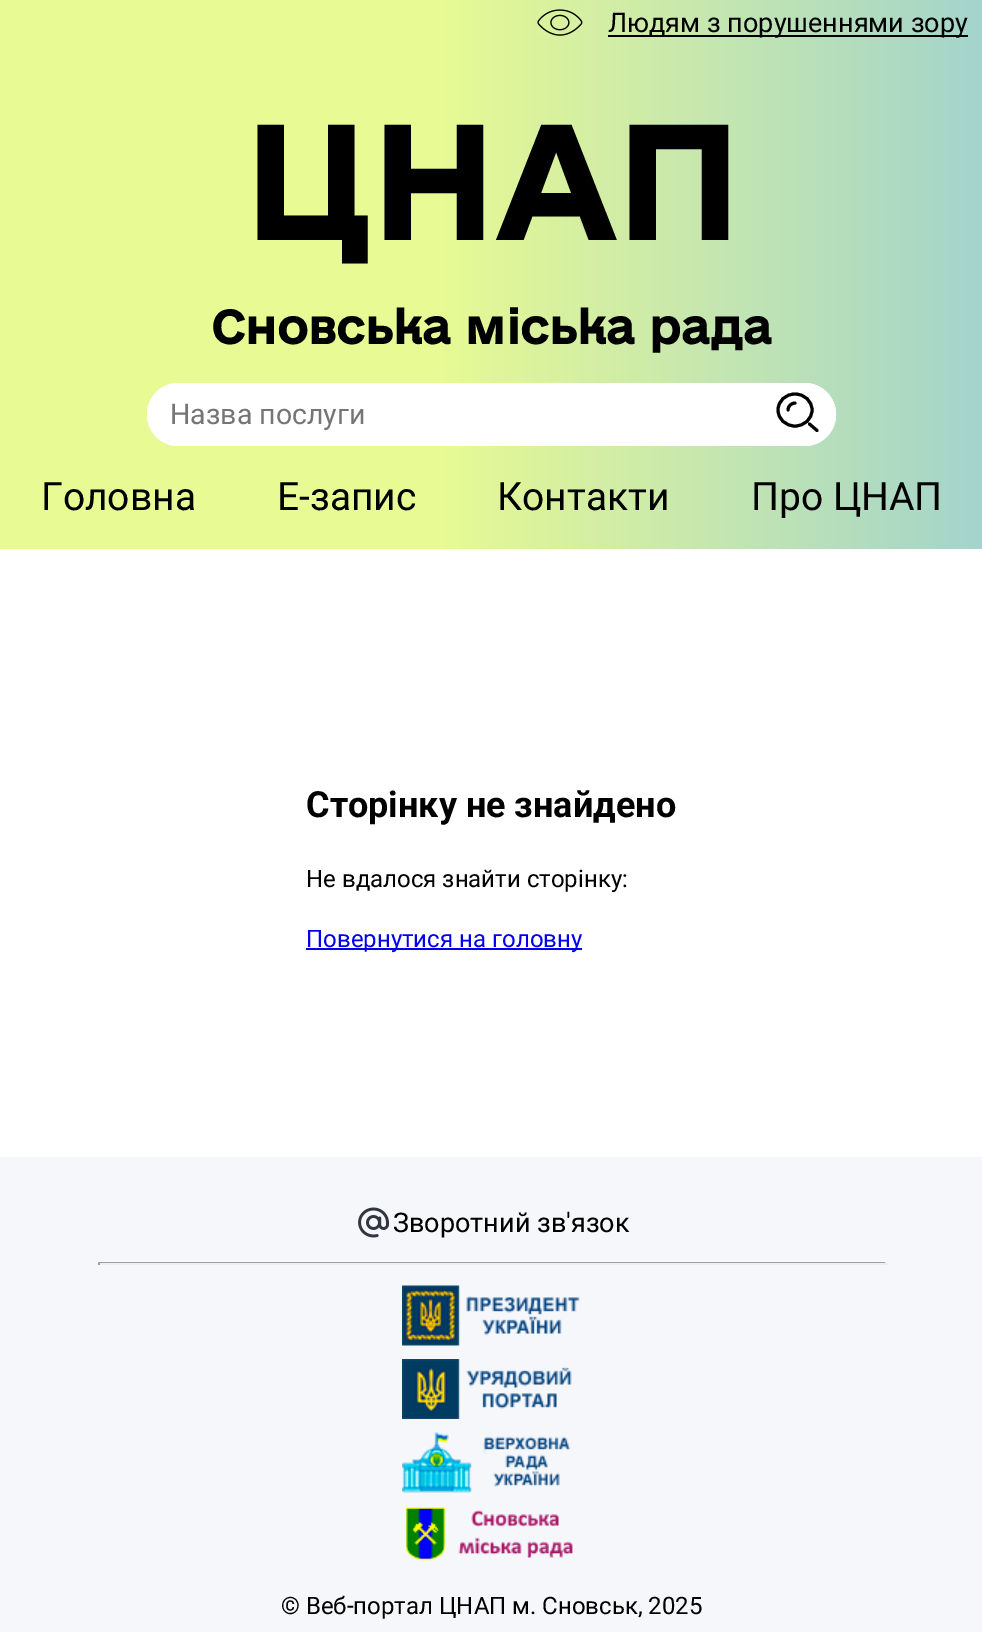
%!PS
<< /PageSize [982 1632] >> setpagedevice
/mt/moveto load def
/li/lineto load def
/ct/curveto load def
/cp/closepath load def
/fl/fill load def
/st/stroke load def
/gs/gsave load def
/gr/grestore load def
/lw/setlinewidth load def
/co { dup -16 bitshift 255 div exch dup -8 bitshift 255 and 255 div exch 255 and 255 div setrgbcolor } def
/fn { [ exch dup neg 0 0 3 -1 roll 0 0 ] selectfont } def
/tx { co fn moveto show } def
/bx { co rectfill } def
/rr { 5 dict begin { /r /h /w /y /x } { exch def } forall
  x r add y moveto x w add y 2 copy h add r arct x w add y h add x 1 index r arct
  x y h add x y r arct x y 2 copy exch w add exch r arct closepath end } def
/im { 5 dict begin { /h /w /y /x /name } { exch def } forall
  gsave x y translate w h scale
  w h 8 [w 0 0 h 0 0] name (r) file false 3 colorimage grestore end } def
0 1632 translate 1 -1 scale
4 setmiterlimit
0 0 982 1632 16#FFFFFF bx
gs 0 0 mt 982 0 li 982 549 li 0 549 li cp clip newpath
<< /ShadingType 2 /ColorSpace /DeviceRGB /Coords [0 1224 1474 1224] /Extend [true true] /Function << /FunctionType 3 /Domain [0 1] /Functions [<< /FunctionType 2 /Domain [0 1] /C0 [.906 .98 .58] /C1 [.906 .98 .58] /N 1 >> << /FunctionType 2 /Domain [0 1] /C0 [.906 .98 .58] /C1 [.4 .694 1] /N 1 >>] /Bounds [.3] /Encode [0 1 0 1] >> >> shfill gr
(media/1.raw) 537 9 46 27 im
608 35 360 2 16#000000 bx
16#FFFFFF co
147 383 689 63 31.5 rr fl
178.5 383 mt 759 383 li 759 446 li 178.5 446 li 161 446 147 432 147 414.5 ct 147 397 161 383 178.5 383 ct cp fl
759 383 77 63 31.5 rr fl
16#000000 co
3 lw
795 394 mt 804.5 394 812 401 812 410 ct 812 419 804.5 426 795 426 ct 785.5 426 778 419 778 410 ct 778 401 785.5 394 795 394 ct cp st
1 setlinecap
795 403 mt 791.5 403 788 406 788 410 ct 817 430.5 mt 809.5 424 li st
306 948 276 2 16#0000EE bx
0 1157 982 475 16#F5F7FA bx
(media/2.raw) 358 1207 31 31 im
98 1262 789 1 16#9F9F9F bx
885 1262 2 3 16#EEEEEE bx
98 1263 789 2 16#EEEEEE bx
98 1262 2 3 16#9F9F9F bx
(media/3.raw) 402 1285 178 61 im
(media/4.raw) 402 1359 170 60 im
(media/5.raw) 402 1432 169 61 im
(media/6.raw) 406 1507 167 54 im
(Людям з порушеннями зору) 608 32 /Roboto-Regular 27 16#000000 tx
(ЦНАП) 242 240 /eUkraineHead-Bold 150 16#000000 tx
(Сновська міська рада) 211 344 /eUkraineHead-Bold 45 16#000000 tx
(Назва послуги) 170 424 /Roboto-Regular 28.5 16#757575 tx
(Головна) 41 510 /Roboto-Regular 39 16#000000 tx
(E-запис) 277 510 /Roboto-Regular 39 16#000000 tx
(Контакти) 497 510 /Roboto-Regular 39 16#000000 tx
(Про ЦНАП) 751 510 /Roboto-Regular 39 16#000000 tx
(Сторінку не знайдено) 306 817 /Roboto-Bold 36 16#000000 tx
(Не вдалося знайти сторінку:) 306 887 /Roboto-Regular 24 16#000000 tx
(Повернутися на головну) 306 947 /Roboto-Regular 24 16#0000EE tx
(Зворотний зв'язок) 393 1232 /Roboto-Regular 27 16#000000 tx
(© Веб-портал ЦНАП м. Сновськ, 2025) 281 1614 /Roboto-Regular 24 16#000000 tx
showpage
